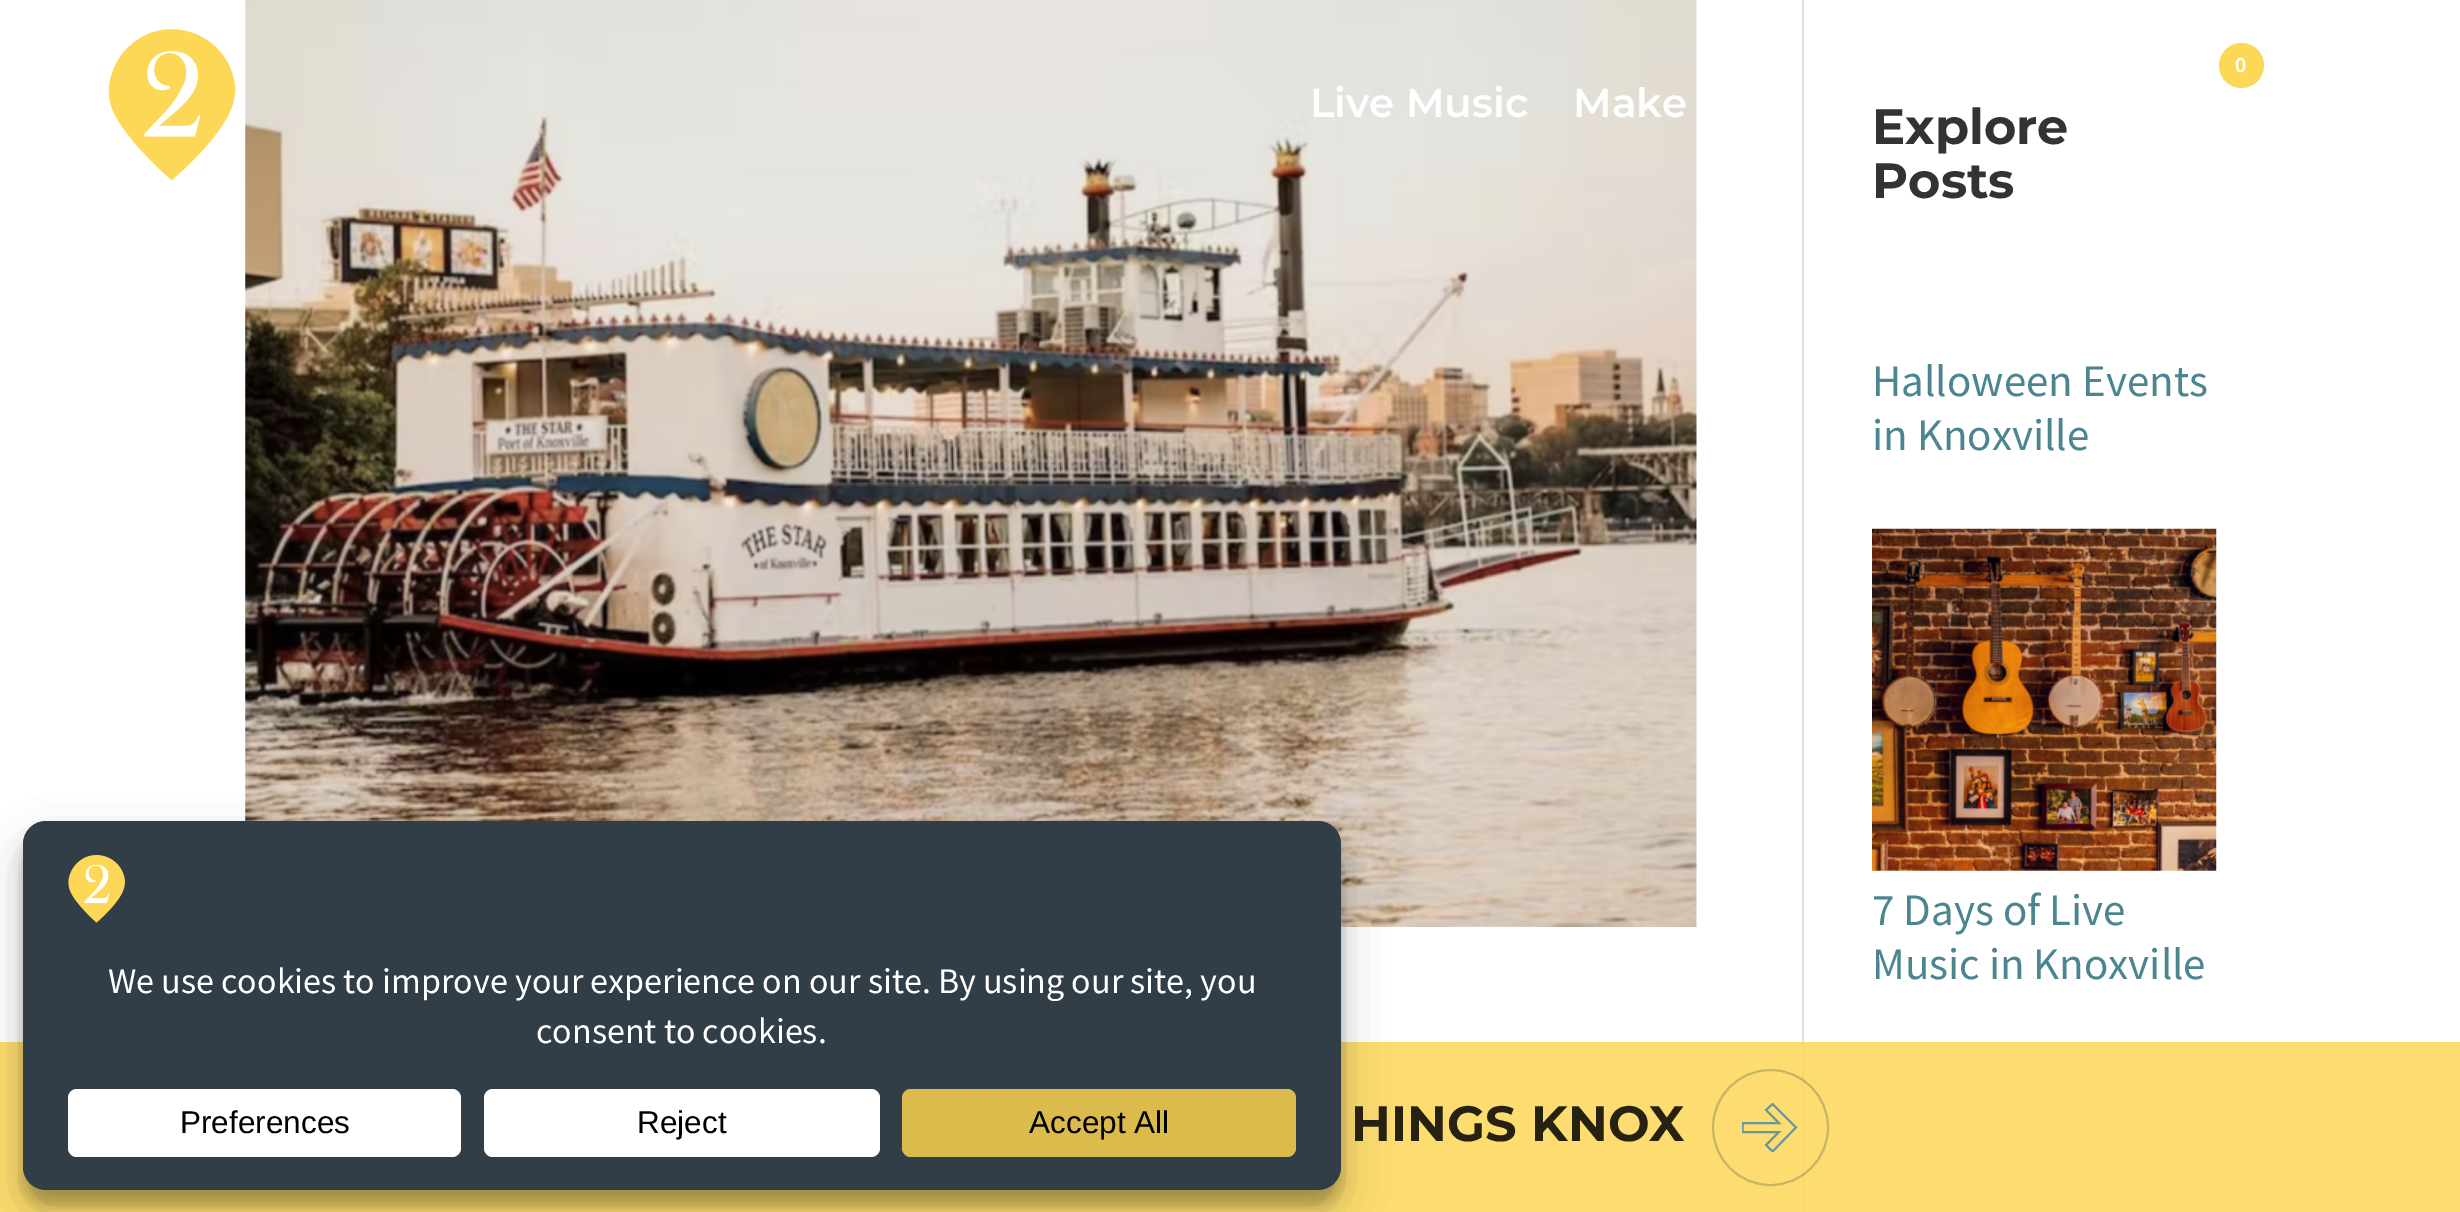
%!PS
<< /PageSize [2460 1212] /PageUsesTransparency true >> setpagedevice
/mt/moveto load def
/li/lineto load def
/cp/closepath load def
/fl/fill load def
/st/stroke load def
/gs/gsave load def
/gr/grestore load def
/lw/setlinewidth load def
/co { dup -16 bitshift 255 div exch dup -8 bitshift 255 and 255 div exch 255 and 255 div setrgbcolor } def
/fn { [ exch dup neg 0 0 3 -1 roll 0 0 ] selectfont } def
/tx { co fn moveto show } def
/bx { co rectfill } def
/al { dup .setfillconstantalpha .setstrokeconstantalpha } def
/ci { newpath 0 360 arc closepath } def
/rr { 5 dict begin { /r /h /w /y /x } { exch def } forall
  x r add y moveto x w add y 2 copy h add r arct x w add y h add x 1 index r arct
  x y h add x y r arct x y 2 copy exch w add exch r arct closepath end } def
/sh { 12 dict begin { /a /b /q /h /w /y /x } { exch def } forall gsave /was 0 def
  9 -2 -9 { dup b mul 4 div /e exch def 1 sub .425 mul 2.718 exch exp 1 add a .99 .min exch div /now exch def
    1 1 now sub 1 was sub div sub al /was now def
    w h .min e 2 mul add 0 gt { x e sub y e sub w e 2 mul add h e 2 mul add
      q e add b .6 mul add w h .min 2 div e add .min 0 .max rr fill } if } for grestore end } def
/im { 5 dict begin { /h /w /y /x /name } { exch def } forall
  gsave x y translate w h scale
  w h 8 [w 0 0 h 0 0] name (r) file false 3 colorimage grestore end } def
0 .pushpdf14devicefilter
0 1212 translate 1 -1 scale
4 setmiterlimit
0 0 2460 1212 16#FFFFFF bx
(media/3.raw) 245 0 1452 927 im
1802 0 2 1212 16#E2E2E2 bx
0.85 al
0 1042 2460 170 16#FDD756 bx
1 al
16#000000 co
23 835 1318 369 23 7 .23 sh
23 844 1318 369 23 22.5 .19 sh
16#313E48 co
23 821 1318 369 23 rr fl
(media/1.raw) 68 855 58 68 im
16#FFFFFF co
68 1089 393 68 9 rr fl
484 1089 396 68 9 rr fl
16#DABB4B co
902 1089 394 68 9 rr fl
(media/2.raw) 108 29 128 152 im
16#FDD756 co
2241.5 65.5 22.5 ci fl
(media/4.raw) 1872 528 345 343 im
gs
1742 1103 56 49 rectclip
16#6697A1 co
1.9 lw
1742.5 1123 mt 1779 1123 li 1766 1110 li 1772.5 1104 li 1796 1127.5 li 1772.5 1151.5 li 1766 1145 li 1779 1132 li 1742.5 1132 li cp st
gr
0.26 al
16#313E48 co
2 lw
1770.5 1127.5 57.5 ci st
1 al
(We use cookies to improve your experience on our site. By using our site, you) 108 993 /SourceSansPro-Regular 36 16#FFFFFF tx
(consent to cookies.) 536 1043 /SourceSansPro-Regular 36 16#FFFFFF tx
(Preferences) 180 1133 /LiberationSans-Regular 31.5 16#000000 tx
(Reject) 637 1133 /LiberationSans-Regular 31.5 16#000000 tx
(Accept All) 1029 1133 /LiberationSans-Regular 31.5 16#000000 tx
(0) 2235 72 /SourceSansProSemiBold-SemiBold 22 16#FFFFFF tx
(Live Music) 1310 117 /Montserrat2-Thin 40.5 16#FFFFFF tx
(Make) 1573 117 /Montserrat2-Thin 40.5 16#FFFFFF tx
(Explore) 1872 144 /Montserrat-Thin 49.5 16#333333 tx
(Posts) 1872 198 /Montserrat-Thin 49.5 16#333333 tx
(Halloween Events) 1872 396 /SourceSansPro-Regular 45 16#4B8590 tx
(in Knoxville) 1872 450 /SourceSansPro-Regular 45 16#4B8590 tx
(7 Days of Live) 1872 925 /SourceSansPro-Regular 45 16#4B8590 tx
(Music in Knoxville) 1872 979 /SourceSansPro-Regular 45 16#4B8590 tx
(HINGS KNOX) 1351 1141 /Montserrat-Thin 49.5 16#262110 tx
.poppdf14devicefilter showpage
